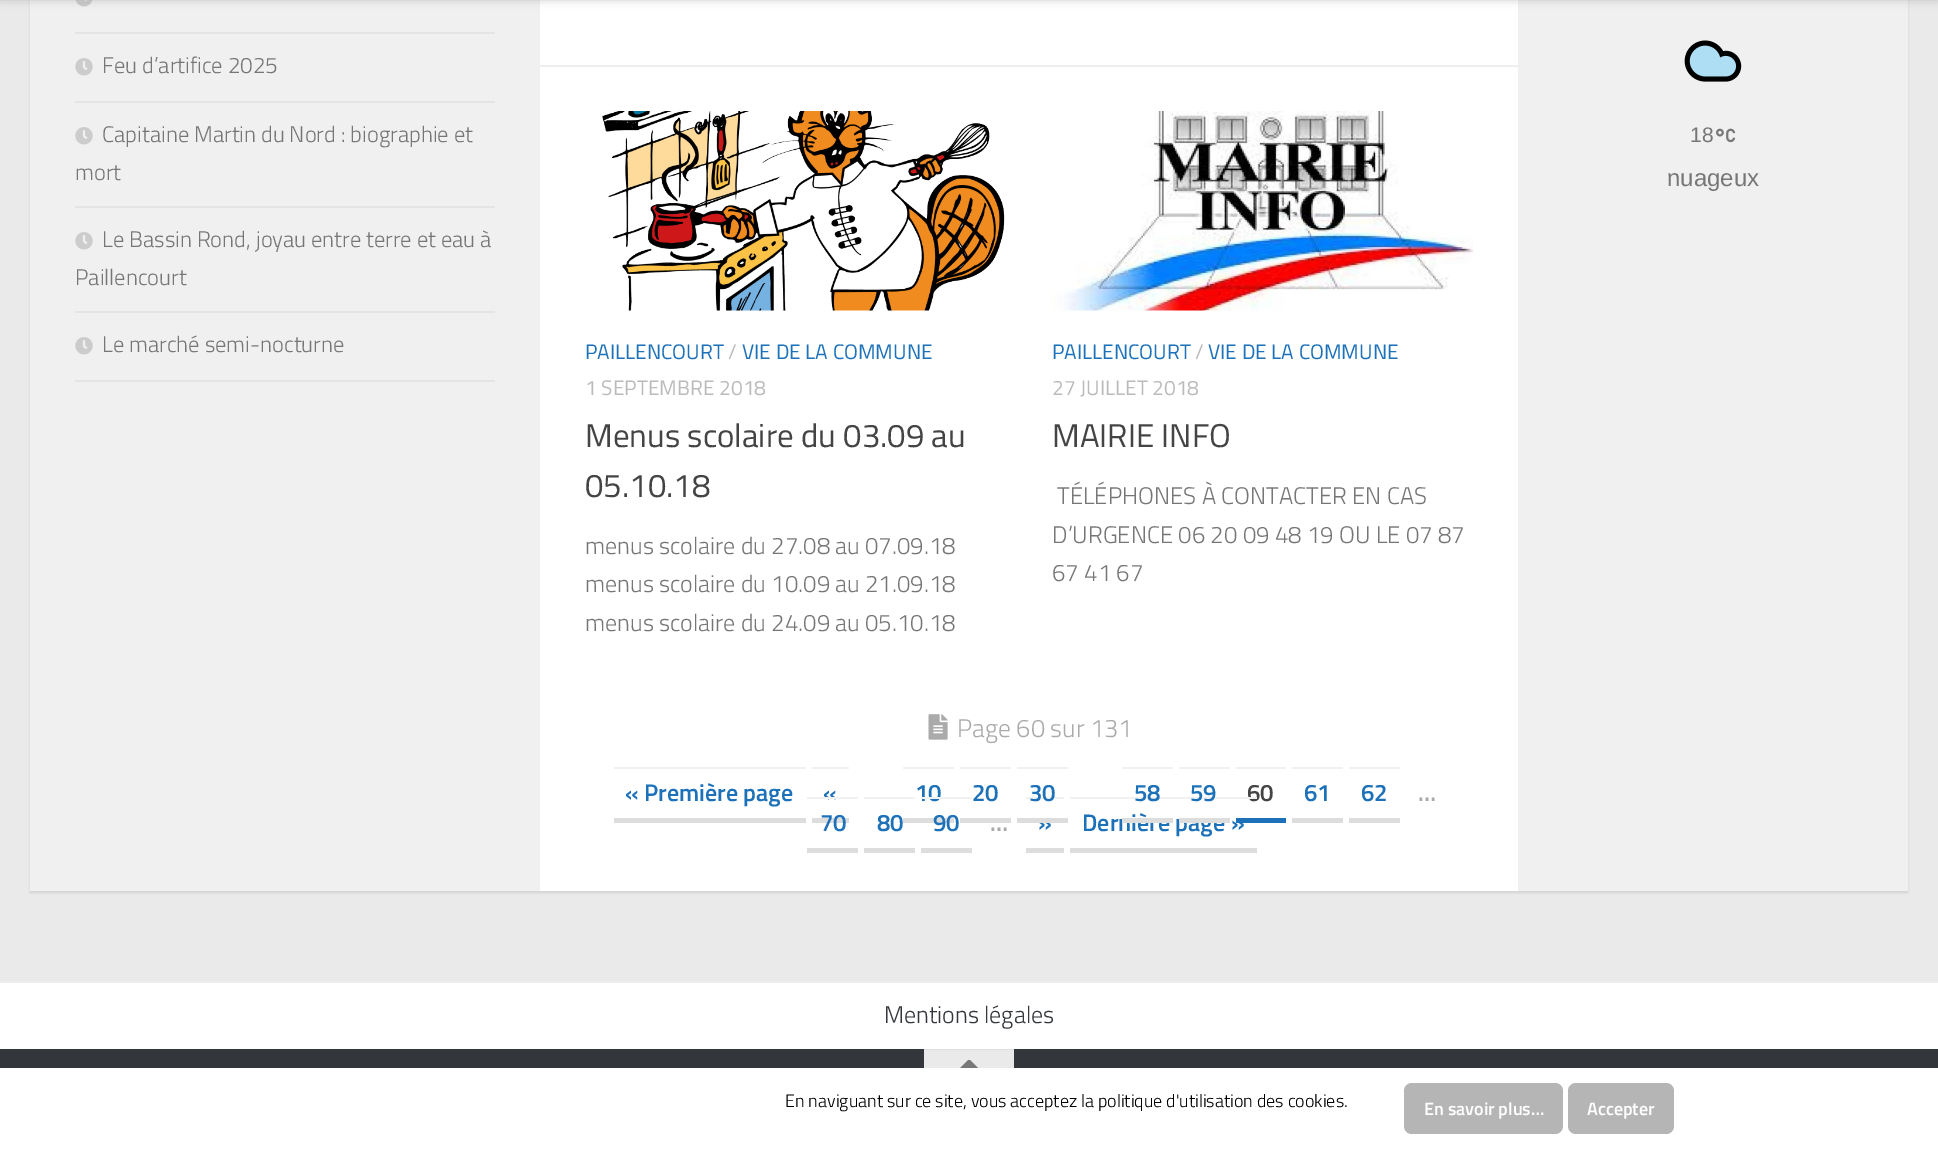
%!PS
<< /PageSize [1938 1149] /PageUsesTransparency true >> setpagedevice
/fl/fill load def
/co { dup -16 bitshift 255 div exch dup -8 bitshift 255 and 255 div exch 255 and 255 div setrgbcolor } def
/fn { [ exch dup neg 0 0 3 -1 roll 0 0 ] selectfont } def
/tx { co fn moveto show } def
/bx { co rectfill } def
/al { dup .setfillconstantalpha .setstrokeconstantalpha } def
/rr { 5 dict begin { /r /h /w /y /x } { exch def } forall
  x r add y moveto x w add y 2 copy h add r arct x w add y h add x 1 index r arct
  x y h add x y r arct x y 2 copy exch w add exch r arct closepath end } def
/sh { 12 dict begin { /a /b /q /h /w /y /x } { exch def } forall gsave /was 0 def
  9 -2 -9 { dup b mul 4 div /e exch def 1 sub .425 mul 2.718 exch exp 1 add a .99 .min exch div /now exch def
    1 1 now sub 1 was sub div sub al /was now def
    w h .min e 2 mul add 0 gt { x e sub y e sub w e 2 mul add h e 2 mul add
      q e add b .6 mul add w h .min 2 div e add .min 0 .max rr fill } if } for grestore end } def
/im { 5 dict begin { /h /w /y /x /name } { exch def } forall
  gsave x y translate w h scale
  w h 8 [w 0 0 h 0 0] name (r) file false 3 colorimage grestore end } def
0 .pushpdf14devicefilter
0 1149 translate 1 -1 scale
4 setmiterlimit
0 0 1938 1149 16#EAEAEA bx
16#000000 co
30 -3 1878 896 0 1 .1 sh
540 0 978 891 16#FFFFFF bx
30 0 510 891 16#F0F0F0 bx
1518 0 390 891 16#F0F0F0 bx
(media/1.raw) 75 0 18 7 im
0.15 al
0 0 1938 2 16#FFFFFF bx
1 al
16#000000 co
0 -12 1938 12 0 4 .2 sh
75 32 420 2 16#E4E4E4 bx
75 101 420 2 16#E4E4E4 bx
(media/2.raw) 75 58 18 18 im
75 206 420 2 16#E4E4E4 bx
(media/2.raw) 75 127 18 18 im
75 311 420 2 16#E4E4E4 bx
(media/2.raw) 75 232 18 18 im
75 380 420 2 16#E4E4E4 bx
(media/2.raw) 75 337 18 18 im
(media/3.raw) 1684 40 58 42 im
(media/4.raw) 1716 128 20 15 im
540 65 978 2 16#EEEEEE bx
(media/5.raw) 602 111 403 200 im
(media/6.raw) 1052 111 421 200 im
(media/7.raw) 928 714 20 26 im
614 767 192 2 16#F1F1F1 bx
614 818 192 5 16#DDDDDD bx
812 767 37 2 16#F1F1F1 bx
812 818 37 5 16#DDDDDD bx
903 767 51 2 16#F1F1F1 bx
903 818 51 5 16#DDDDDD bx
960 767 51 2 16#F1F1F1 bx
960 818 51 5 16#DDDDDD bx
1017 767 51 2 16#F1F1F1 bx
1122 767 51 2 16#F1F1F1 bx
1179 767 51 2 16#F1F1F1 bx
1236 767 50 2 16#F1F1F1 bx
1236 818 50 5 16#1D71B8 bx
1292 767 51 2 16#F1F1F1 bx
1292 818 51 5 16#DDDDDD bx
1349 767 51 2 16#F1F1F1 bx
1349 818 51 5 16#DDDDDD bx
807 848 51 5 16#DDDDDD bx
864 797 51 2 16#F1F1F1 bx
864 848 51 5 16#DDDDDD bx
921 848 51 5 16#DDDDDD bx
1026 797 38 2 16#F1F1F1 bx
1026 848 38 5 16#DDDDDD bx
1070 848 187 5 16#DDDDDD bx
0 983 1938 66 16#FFFFFF bx
0 981 1938 2 16#EEEEEE bx
0 1049 1938 19 16#33363B bx
924 1050 90 18 16#EAEAEA bx
924 1049 90 1 16#DEDEDE bx
(media/8.raw) 960 1059 18 9 im
0 1068 1938 81 16#FFFFFF bx
16#B5B5B5 co
1404 1083 159 51 8 rr fl
1568 1083 106 51 8 rr fl
(Feu d’artifice 2025) 102 73 /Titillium-Light 22.5 16#767676 tx
(Capitaine Martin du Nord : biographie et) 102 142 /Titillium-Light 22.5 16#767676 tx
(mort) 75 180 /Titillium-Light 22.5 16#767676 tx
(Le Bassin Rond, joyau entre terre et eau à) 102 247 /Titillium-Light 22.5 16#767676 tx
(Paillencourt) 75 285 /Titillium-Light 22.5 16#767676 tx
(Le marché semi-nocturne) 102 352 /Titillium-Light 22.5 16#767676 tx
(18) 1690 142 /LiberationSans-Regular 21 16#767676 tx
(nuageux) 1667 186 /LiberationSans-Regular 24 16#767676 tx
(PAILLENCOURT) 585 359 /Titillium-Regular 21 16#1D71B8 tx
(/) 728 359 /Titillium-Regular 21 16#BBBBBB tx
(VIE DE LA COMMUNE) 742 359 /Titillium-Regular 21 16#1D71B8 tx
(1 SEPTEMBRE 2018) 585 395 /Titillium-Regular 21 16#BBBBBB tx
(Menus scolaire du 03.09 au) 585 447 /Titillium-Regular 33 16#444444 tx
(05.10.18) 585 497 /Titillium-Regular 33 16#444444 tx
(menus scolaire du 27.08 au 07.09.18) 585 554 /Titillium-Light 24 16#767676 tx
(menus scolaire du 10.09 au 21.09.18) 585 592 /Titillium-Light 24 16#767676 tx
(menus scolaire du 24.09 au 05.10.18) 585 631 /Titillium-Light 24 16#767676 tx
(PAILLENCOURT) 1052 359 /Titillium-Regular 21 16#1D71B8 tx
(/) 1195 359 /Titillium-Regular 21 16#BBBBBB tx
(VIE DE LA COMMUNE) 1208 359 /Titillium-Regular 21 16#1D71B8 tx
(27 JUILLET 2018) 1052 395 /Titillium-Regular 21 16#BBBBBB tx
(MAIRIE INFO) 1052 447 /Titillium-Regular 33 16#444444 tx
(TÉLÉPHONES À CONTACTER EN CAS) 1057 504 /Titillium-Light 24 16#767676 tx
(D’URGENCE 06 20 09 48 19 OU LE 07 87) 1052 543 /Titillium-Light 24 16#767676 tx
(67 41 67) 1052 581 /Titillium-Light 24 16#767676 tx
(Page 60 sur 131) 957 737 /Titillium-Light 25.5 16#AAAAAA tx
(« Première page) 625 801 /Titillium-SemiBold 24 16#1D71B8 tx
(«) 823 801 /Titillium-SemiBold 24 16#1D71B8 tx
(10) 915 801 /Titillium-SemiBold 24 16#1D71B8 tx
(20) 972 801 /Titillium-SemiBold 24 16#1D71B8 tx
(30) 1029 801 /Titillium-SemiBold 24 16#1D71B8 tx
(60) 1247 801 /Titillium-SemiBold 24 16#444444 tx
(61) 1304 801 /Titillium-SemiBold 24 16#1D71B8 tx
(62) 1361 801 /Titillium-SemiBold 24 16#1D71B8 tx
(…) 1418 801 /Titillium-SemiBold 24 16#AAAAAA tx
(70) 820 831 /Titillium-SemiBold 24 16#1D71B8 tx
807 797 51 2 16#F1F1F1 bx
(80) 877 831 /Titillium-SemiBold 24 16#1D71B8 tx
(90) 933 831 /Titillium-SemiBold 24 16#1D71B8 tx
921 797 51 2 16#F1F1F1 bx
(…) 990 831 /Titillium-SemiBold 24 16#AAAAAA tx
(») 1038 831 /Titillium-SemiBold 24 16#1D71B8 tx
1017 818 51 5 16#DDDDDD bx
(Dernière page ») 1082 831 /Titillium-SemiBold 24 16#1D71B8 tx
1179 818 51 5 16#DDDDDD bx
1122 818 51 5 16#DDDDDD bx
1070 797 187 2 16#F1F1F1 bx
(59) 1190 801 /Titillium-SemiBold 24 16#1D71B8 tx
(58) 1134 801 /Titillium-SemiBold 24 16#1D71B8 tx
(Mentions légales) 884 1023 /Titillium-Light 24 16#33363B tx
(En naviguant sur ce site, vous acceptez la politique d'utilisation des cookies.) 785 1107 /Titillium-Light 18 16#000000 tx
(En savoir plus…) 1424 1115 /Titillium-SemiBold 18 16#FFFFFF tx
(Accepter) 1587 1115 /Titillium-SemiBold 18 16#FFFFFF tx
.poppdf14devicefilter showpage
